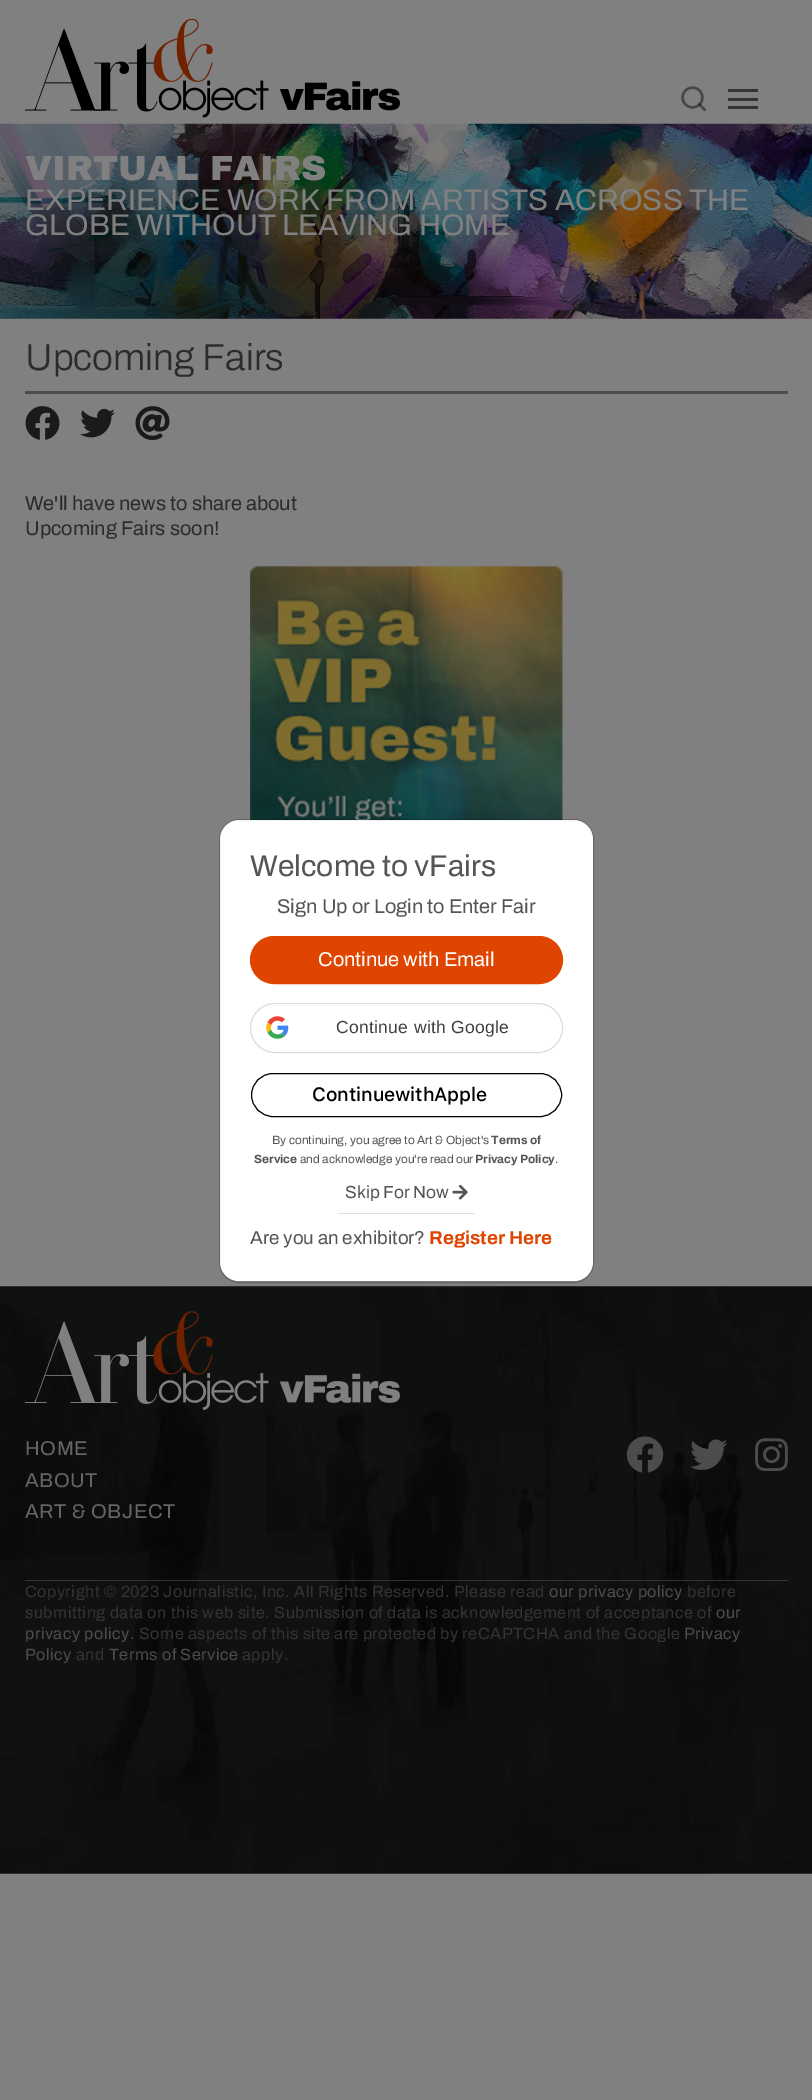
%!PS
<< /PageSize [812 2100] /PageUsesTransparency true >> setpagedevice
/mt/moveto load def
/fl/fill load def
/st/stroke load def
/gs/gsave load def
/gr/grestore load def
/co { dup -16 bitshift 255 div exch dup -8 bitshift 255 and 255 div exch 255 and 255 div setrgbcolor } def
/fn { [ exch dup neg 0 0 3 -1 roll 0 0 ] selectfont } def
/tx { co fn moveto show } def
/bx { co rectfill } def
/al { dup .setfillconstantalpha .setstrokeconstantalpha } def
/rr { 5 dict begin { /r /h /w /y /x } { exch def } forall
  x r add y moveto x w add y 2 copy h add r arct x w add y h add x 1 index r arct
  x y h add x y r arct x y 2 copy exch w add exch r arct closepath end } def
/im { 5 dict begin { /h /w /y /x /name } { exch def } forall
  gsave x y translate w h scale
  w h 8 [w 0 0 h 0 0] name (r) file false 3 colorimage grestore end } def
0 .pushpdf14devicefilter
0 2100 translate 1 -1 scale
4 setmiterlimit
0 0 812 2100 16#808080 bx
(media/1.raw) 25 19 375 99 im
(media/2.raw) 681 86 25 25 im
728 98 30 3 16#333333 bx
728 89 30 3 16#333333 bx
728 106 30 3 16#333333 bx
(media/3.raw) 0 123 812 196 im
25 391 763 3 16#4D4D4D bx
(media/4.raw) 25 406 35 34 im
(media/5.raw) 80 408 35 30 im
(media/6.raw) 135 406 35 35 im
(media/7.raw) 250 566 313 254 im
16#FFFFFF co
220 820 373 461 19 rr fl
0.2 al
16#000000 co
219.5 819.5 374 463 19.5 rr st
1 al
16#DF4500 co
250.5 936.5 312 47 23.5 rr gs fl gr
st
16#DADCE0 co
250.5 1003.5 312 49 24.5 rr st
(media/8.raw) 266 1016 23 23 im
16#000000 co
251.5 1073.5 310 43 21.5 rr st
(media/9.raw) 452 1184 16 16 im
338 1213 137 1 16#DEDEDE bx
(media/10.raw) 0 1286 812 588 im
(media/11.raw) 25 1311 375 99 im
(media/12.raw) 626 1436 38 37 im
(media/13.raw) 690 1439 38 31 im
(media/14.raw) 755 1438 33 34 im
25 1580 763 1 16#333333 bx
(VIRTUAL FAIRS) 25 180 /ArchivoBlack-Black 35 16#808080 tx
(EXPERIENCE WORK FROM ARTISTS ACROSS THE) 25 210 /Archivo-SemiBold 30 16#808080 tx
(GLOBE WITHOUT LEAVING HOME) 25 235 /Archivo-SemiBold 30 16#808080 tx
(Upcoming Fairs) 25 370 /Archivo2-SemiBold 37.5 16#2B2B2B tx
(We'll have news to share about) 25 510 /Archivo-SemiBold 20 16#2B2B2B tx
(Upcoming Fairs soon!) 25 535 /Archivo-SemiBold 20 16#2B2B2B tx
(Welcome to vFairs) 250 876 /Archivo-SemiBold 30 16#555555 tx
(Sign Up or Login to Enter Fair) 277 913 /Archivo-SemiBold 20 16#555555 tx
(Continue with Email) 318 966 /Archivo-SemiBold 20 16#FFFFFF tx
/LiberationSans-Regular 17.5 fn
16#3C4043 co
336 1033 mt .3 0 (Continue with Google) ashow
/SFProText-Medium 19.25 fn
16#000000 co
307 1101 mt -6 0 32 ( Continue with Apple) widthshow
(By continuing, you agree to Art & Object's) 272 1144 /Archivo-SemiBold 11.9 16#555555 tx
(Terms of) 491 1144 /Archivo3-SemiBold 11.9 16#555555 tx
(Service) 254 1163 /Archivo3-SemiBold 11.9 16#555555 tx
(and acknowledge you're read our) 300 1163 /Archivo-SemiBold 11.9 16#555555 tx
(Privacy Policy) 475 1163 /Archivo3-SemiBold 11.9 16#555555 tx
(.) 555 1163 /Archivo-SemiBold 11.9 16#555555 tx
(Skip For Now) 345 1198 /Archivo-SemiBold 17.5 16#555555 tx
(Are you an exhibitor?) 250 1244 /Archivo-SemiBold 18.75 16#555555 tx
(Register Here) 429 1244 /Archivo3-SemiBold 18.75 16#DF4500 tx
/Archivo-SemiBold 20 fn
16#666666 co
25 1455 mt .6 0 (HOME) ashow
25 1487 mt .6 0 (ABOUT) ashow
25 1518 mt .6 0 (ART & OBJECT) ashow
/Archivo-SemiBold 16.25 fn
16#333333 co
25 1597 mt .5 0 (Copyright © 2023 Journalistic, Inc. All Rights Reserved. Please read) ashow
16#4D4D4D co
549 1597 mt .5 0 (our privacy policy) ashow
16#333333 co
687 1597 mt .5 0 (before) ashow
25 1618 mt .5 0 (submitting data on this web site. Submission of data is acknowledgement of acceptance of) ashow
16#4D4D4D co
716 1618 mt .5 0 (our) ashow
25 1639 mt .5 0 (privacy policy.) ashow
16#333333 co
139 1639 mt .5 0 (Some aspects of this site are protected by reCAPTCHA and the Google) ashow
16#4D4D4D co
684 1639 mt .5 0 (Privacy) ashow
25 1660 mt .5 0 (Policy) ashow
16#333333 co
76 1660 mt .5 0 (and) ashow
16#4D4D4D co
109 1660 mt .5 0 (Terms of Service) ashow
16#333333 co
242 1660 mt .5 0 (apply.) ashow
.poppdf14devicefilter showpage
